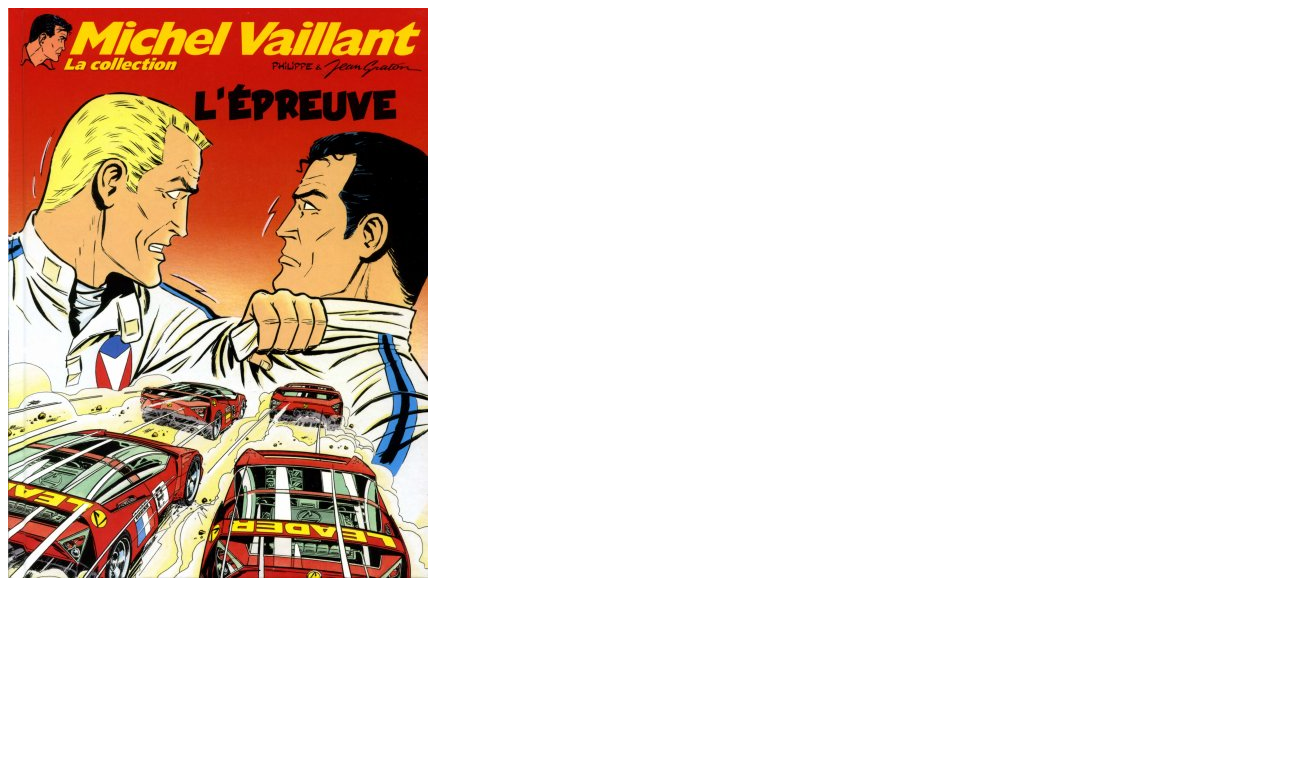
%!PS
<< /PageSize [1292 784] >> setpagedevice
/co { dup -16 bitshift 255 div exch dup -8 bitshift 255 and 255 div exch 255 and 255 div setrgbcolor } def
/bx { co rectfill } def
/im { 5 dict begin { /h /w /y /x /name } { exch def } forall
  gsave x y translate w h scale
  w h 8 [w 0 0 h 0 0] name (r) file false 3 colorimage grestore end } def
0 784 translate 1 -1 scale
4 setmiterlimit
0 0 1292 784 16#FFFFFF bx
(media/1.raw) 8 8 420 570 im
showpage
